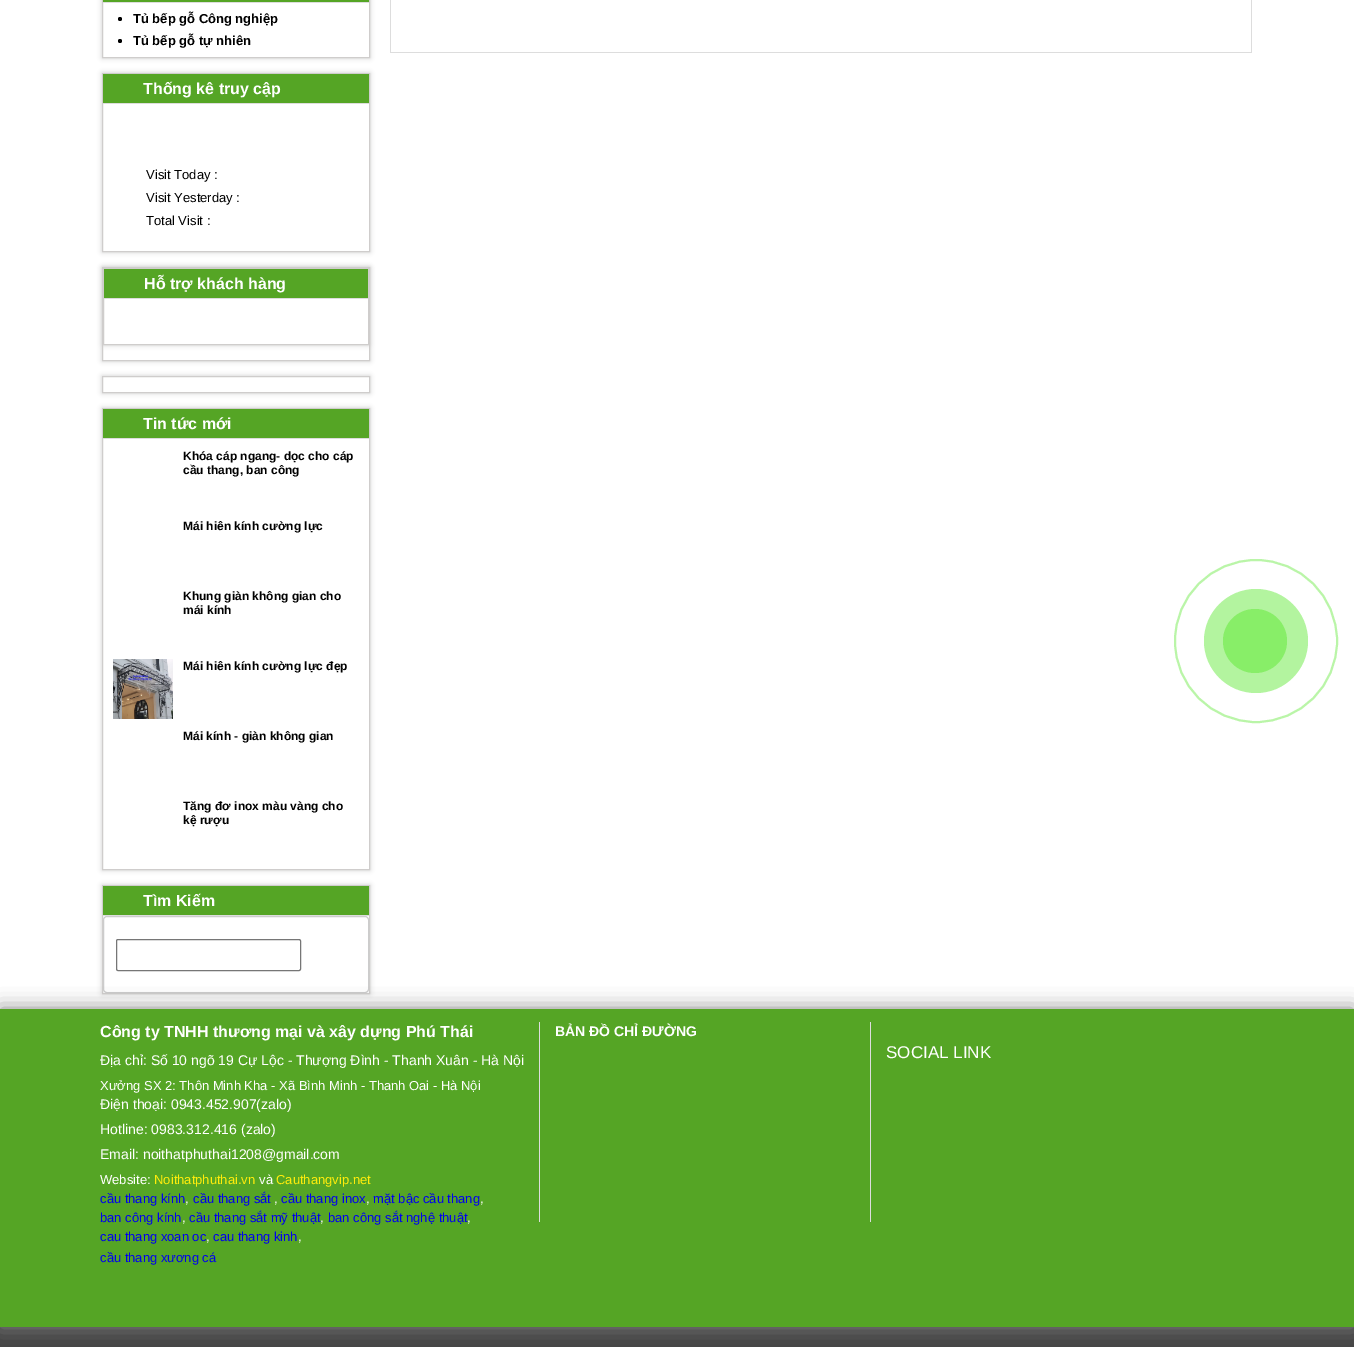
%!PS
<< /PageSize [1354 1347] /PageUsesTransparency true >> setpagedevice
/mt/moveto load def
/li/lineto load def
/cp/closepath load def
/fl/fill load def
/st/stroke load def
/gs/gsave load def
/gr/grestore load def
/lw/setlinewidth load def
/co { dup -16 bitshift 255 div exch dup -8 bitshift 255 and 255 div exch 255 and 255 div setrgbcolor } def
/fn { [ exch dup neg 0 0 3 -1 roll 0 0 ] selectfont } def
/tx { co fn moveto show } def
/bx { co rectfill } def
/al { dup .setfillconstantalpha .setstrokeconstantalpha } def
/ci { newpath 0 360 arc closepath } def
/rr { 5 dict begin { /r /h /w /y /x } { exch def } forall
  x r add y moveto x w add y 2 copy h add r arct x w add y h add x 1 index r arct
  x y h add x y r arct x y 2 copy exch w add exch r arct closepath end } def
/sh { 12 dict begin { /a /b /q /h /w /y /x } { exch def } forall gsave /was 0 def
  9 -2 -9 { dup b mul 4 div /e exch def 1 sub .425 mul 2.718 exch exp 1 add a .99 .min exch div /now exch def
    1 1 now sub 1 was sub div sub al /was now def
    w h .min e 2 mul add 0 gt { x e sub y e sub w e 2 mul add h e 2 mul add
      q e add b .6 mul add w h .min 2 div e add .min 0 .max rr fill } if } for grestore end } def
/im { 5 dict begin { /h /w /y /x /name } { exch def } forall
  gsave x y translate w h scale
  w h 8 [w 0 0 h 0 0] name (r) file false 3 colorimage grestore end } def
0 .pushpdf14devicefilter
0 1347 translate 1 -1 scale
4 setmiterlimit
0 0 1354 1347 16#FFFFFF bx
gs
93 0 mt 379 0 li 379 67 li 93 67 li cp 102 -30 mt 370 -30 li 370 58 li 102 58 li cp eoclip newpath
16#CFCDCC co
102 -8 268 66 0 2.5 1 sh
gr
16#CFCDCC co
102.5 -.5 267 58 rectstroke
103 0 266 2 16#55A525 bx
103 2 266 1 16#DDDDDD bx
16#000000 co
120 19 2 ci fl
120 41 2 ci fl
gs
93 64 mt 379 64 li 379 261 li 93 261 li cp 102 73 mt 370 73 li 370 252 li 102 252 li cp eoclip newpath
16#CFCDCC co
102 73 268 179 0 2.5 1 sh
gr
16#CFCDCC co
102.5 73.5 267 178 rectstroke
103 74 266 29 16#55A525 bx
103 103 266 1 16#DDDDDD bx
gs
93 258 mt 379 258 li 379 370 li 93 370 li cp 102 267 mt 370 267 li 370 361 li 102 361 li cp eoclip newpath
16#CFCDCC co
102 267 268 94 0 2.5 1 sh
gr
16#CFCDCC co
102.5 267.5 267 93 rectstroke
gs
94 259 mt 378 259 li 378 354 li 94 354 li cp 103 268 mt 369 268 li 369 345 li 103 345 li cp eoclip newpath
103 268 266 77 0 2.5 1 sh
gr
103.5 268.5 265 76 rectstroke
104 269 264 29 16#55A525 bx
104 298 264 1 16#DDDDDD bx
gs
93 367 mt 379 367 li 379 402 li 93 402 li cp 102 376 mt 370 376 li 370 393 li 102 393 li cp eoclip newpath
16#CFCDCC co
102 376 268 17 0 2.5 1 sh
gr
16#CFCDCC co
102.5 376.5 267 16 rectstroke
gs
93 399 mt 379 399 li 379 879 li 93 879 li cp 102 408 mt 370 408 li 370 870 li 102 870 li cp eoclip newpath
102 408 268 462 0 2.5 1 sh
gr
102.5 408.5 267 461 rectstroke
103 409 266 29 16#55A525 bx
103 438 266 1 16#DDDDDD bx
(media/1.raw) 113 659 60 60 im
gs
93 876 mt 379 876 li 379 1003 li 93 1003 li cp 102 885 mt 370 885 li 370 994 li 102 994 li cp eoclip newpath
16#CFCDCC co
102 885 268 109 0 2.5 1 sh
gr
16#CFCDCC co
102.5 885.5 267 108 rectstroke
103 886 266 29 16#55A525 bx
103 915 266 1 16#DDDDDD bx
16#CCCCCC co
103.5 916.5 265 76 3.5 rr st
16#767676 co
116.5 939.5 184 31 1.5 rr st
1251 0 1 53 16#DDDDDD bx
390 52 862 1 16#DDDDDD bx
390 0 1 53 16#DDDDDD bx
16#BAF5A8 co
2 lw
1256 641 81 ci st
16#B3F49F co
1256 641 52 ci fl
16#88EE68 co
1255 641 32 ci fl
0 1327 1354 20 16#444444 bx
16#818181 co
0 1009 1354 318 0 10 1 sh
0 1009 1354 318 16#55A525 bx
539 1022 1 200 16#DDDDDD bx
870 1022 1 200 16#DDDDDD bx
(Tủ bếp gỗ Công nghiệp) 133 23 /LiberationSans-Bold 13 16#000000 tx
(Tủ bếp gỗ tự nhiên) 133 45 /LiberationSans-Bold 13 16#000000 tx
(Thống kê truy cập) 143 94 /LiberationSans-Bold 16 16#FFFFFF tx
(Visit Today :) 146 179 /LiberationSans-Regular 13 16#000000 tx
(Visit Yesterday :) 146 202 /LiberationSans-Regular 13 16#000000 tx
(Total Visit :) 146 225 /LiberationSans-Regular 13 16#000000 tx
(Hỗ trợ khách hàng) 144 289 /LiberationSans-Bold 16 16#FFFFFF tx
(Tin tức mới) 143 429 /LiberationSans-Bold 16 16#FFFFFF tx
(Khóa cáp ngang- dọc cho cáp) 183 460 /LiberationSans-Bold 12 16#000000 tx
(cầu thang, ban công) 183 474 /LiberationSans-Bold 12 16#000000 tx
(Mái hiên kính cường lực) 183 530 /LiberationSans-Bold 12 16#000000 tx
(Khung giàn không gian cho) 183 600 /LiberationSans-Bold 12 16#000000 tx
(mái kính) 183 614 /LiberationSans-Bold 12 16#000000 tx
(Mái hiên kính cường lực đẹp) 183 670 /LiberationSans-Bold 12 16#000000 tx
(Mái kính - giàn không gian) 183 740 /LiberationSans-Bold 12 16#000000 tx
(Tăng đơ inox màu vàng cho) 183 810 /LiberationSans-Bold 12 16#000000 tx
(kệ rượu) 183 824 /LiberationSans-Bold 12 16#000000 tx
(Tìm Kiếm) 143 906 /LiberationSans-Bold 16 16#FFFFFF tx
(Công ty TNHH thương mại và xây dựng Phú Thái) 100 1037 /LiberationSans-Bold 16 16#FFFFFF tx
(Địa chỉ: Số 10 ngõ 19 Cự Lộc - Thượng Đình - Thanh Xuân - Hà Nội) 100 1065 /LiberationSans-Regular 14 16#FFFFFF tx
(Xưởng SX 2: Thôn Minh Kha - Xã Bình Minh - Thanh Oai - Hà Nội) 100 1090 /LiberationSans-Regular 13 16#FFFFFF tx
(Điện thoại: 0943.452.907\(zalo\)) 100 1109 /LiberationSans-Regular 14 16#FFFFFF tx
(Hotline: 0983.312.416 \(zalo\)) 100 1134 /LiberationSans-Regular 14 16#FFFFFF tx
(Email: noithatphuthai1208@gmail.com) 100 1159 /LiberationSans-Regular 14 16#FFFFFF tx
(Website:) 100 1184 /LiberationSans-Regular 13 16#FFFFFF tx
(Noithatphuthai.vn) 154 1184 /LiberationSans-Regular 13 16#FFEC0B tx
(và) 259 1184 /LiberationSans-Regular 13 16#FFFFFF tx
(Cauthangvip.net) 276 1184 /LiberationSans-Regular 13 16#FFEC0B tx
(cầu thang kính) 100 1203 /LiberationSans-Regular 13 16#0000EE tx
(,) 185 1203 /LiberationSans-Regular 13 16#FFFFFF tx
(cầu thang sắt) 193 1203 /LiberationSans-Regular 13 16#0000EE tx
(,) 274 1203 /LiberationSans-Regular 13 16#FFFFFF tx
(cầu thang inox) 281 1203 /LiberationSans-Regular 13 16#0000EE tx
(,) 366 1203 /LiberationSans-Regular 13 16#FFFFFF tx
(mặt bậc cầu thang) 373 1203 /LiberationSans-Regular 13 16#0000EE tx
(,) 480 1203 /LiberationSans-Regular 13 16#FFFFFF tx
(ban công kính) 100 1222 /LiberationSans-Regular 13 16#0000EE tx
(,) 182 1222 /LiberationSans-Regular 13 16#FFFFFF tx
(cầu thang sắt mỹ thuật) 189 1222 /LiberationSans-Regular 13 16#0000EE tx
(,) 320 1222 /LiberationSans-Regular 13 16#FFFFFF tx
(ban công sắt nghệ thuật) 328 1222 /LiberationSans-Regular 13 16#0000EE tx
(,) 467 1222 /LiberationSans-Regular 13 16#FFFFFF tx
(cau thang xoan oc) 100 1241 /LiberationSans-Regular 13 16#0000EE tx
(,) 206 1241 /LiberationSans-Regular 13 16#FFFFFF tx
(cau thang kinh) 213 1241 /LiberationSans-Regular 13 16#0000EE tx
(,) 298 1241 /LiberationSans-Regular 13 16#FFFFFF tx
(cầu thang xương cá) 100 1262 /LiberationSans-Regular 13 16#0000EE tx
(BẢN ĐỒ CHỈ ĐƯỜNG) 555 1036 /LiberationSans-Bold 14 16#FFFFFF tx
(SOCIAL LINK) 886 1058 /LiberationSans-Regular 17 16#FFFFFF tx
.poppdf14devicefilter showpage
